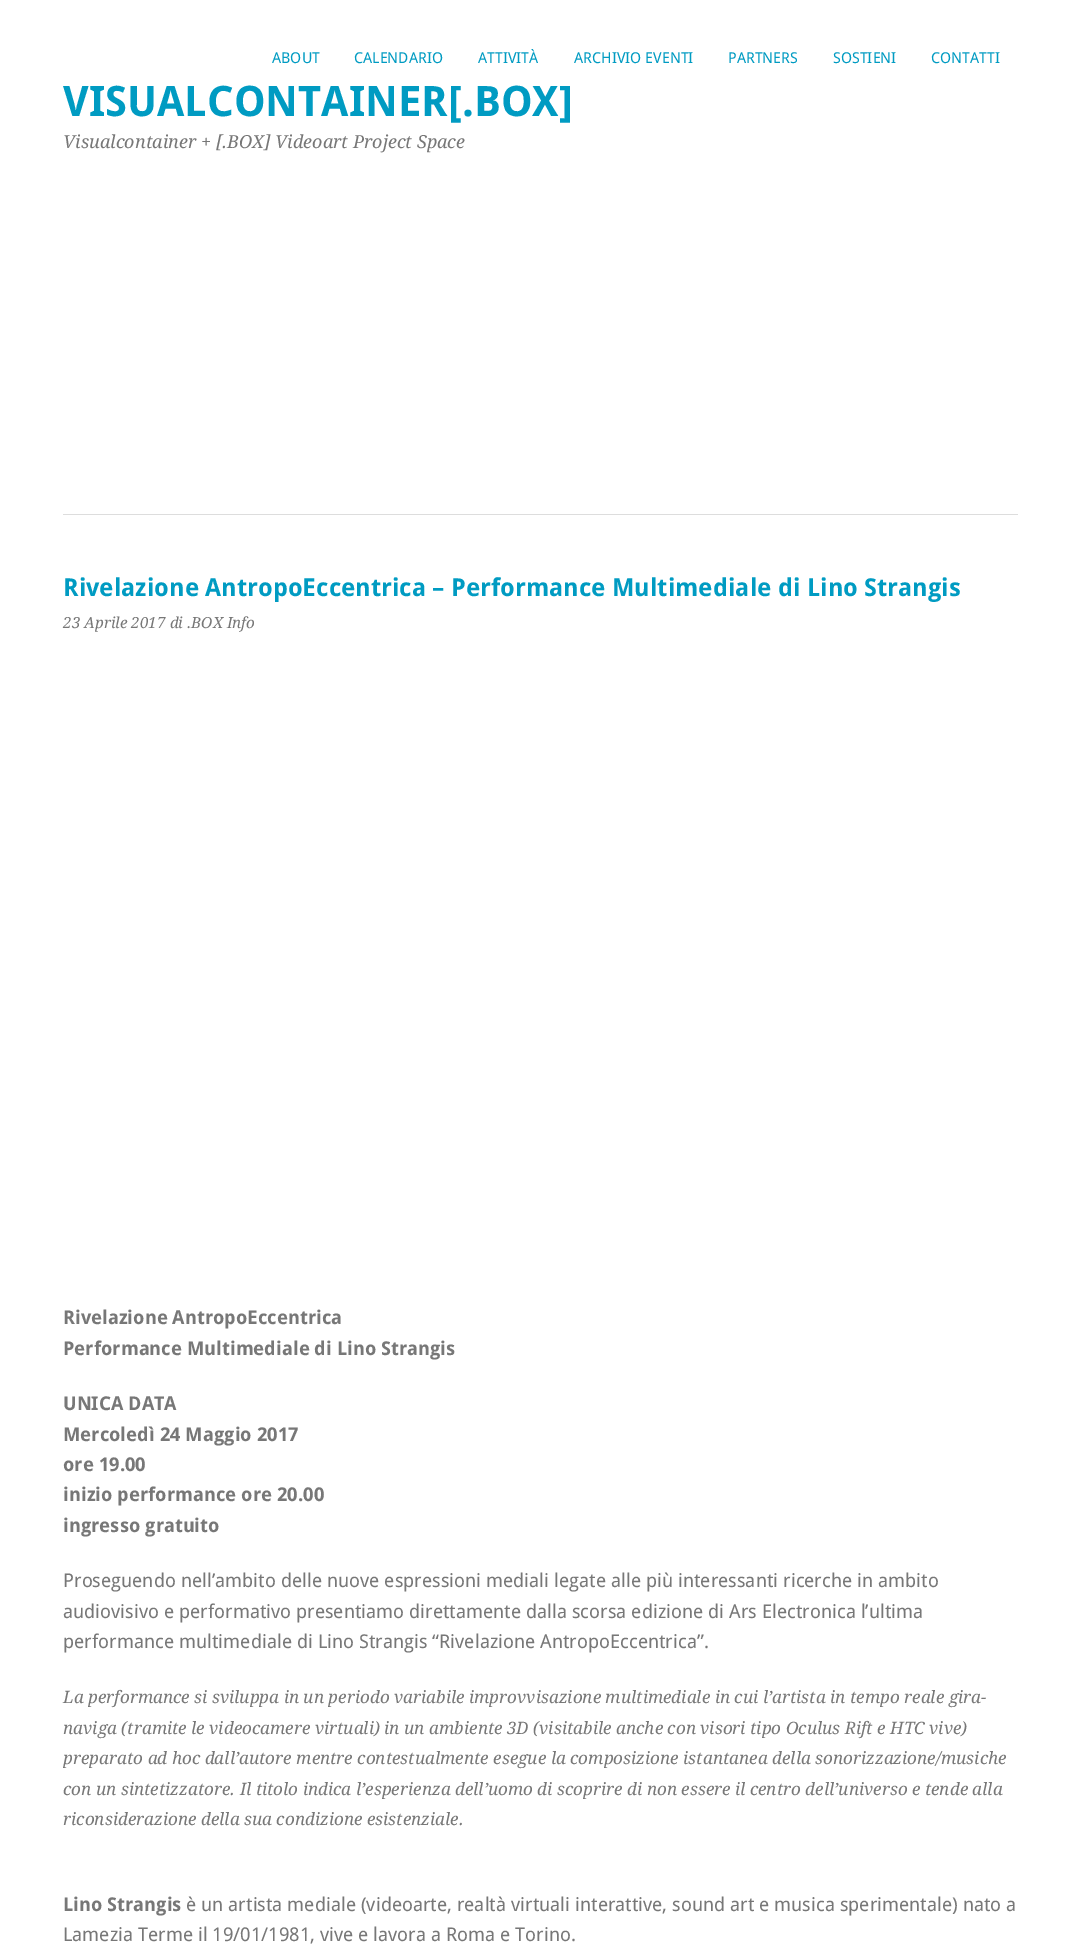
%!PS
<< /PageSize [1080 1944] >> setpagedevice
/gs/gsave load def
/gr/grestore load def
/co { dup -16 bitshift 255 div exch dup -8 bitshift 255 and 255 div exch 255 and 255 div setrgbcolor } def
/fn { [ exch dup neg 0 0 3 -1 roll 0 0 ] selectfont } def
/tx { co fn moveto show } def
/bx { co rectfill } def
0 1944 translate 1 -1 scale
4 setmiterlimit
0 0 1080 1944 16#FFFFFF bx
63 514 955 1 16#DDDDDD bx
(ABOUT) 272 63 /DroidSans-Regular 15 16#009BC2 tx
(CALENDARIO) 354 63 /DroidSans-Regular 15 16#009BC2 tx
(ATTIVITÀ) 478 63 /DroidSans-Regular 15 16#009BC2 tx
(ARCHIVIO EVENTI) 574 63 /DroidSans-Regular 15 16#009BC2 tx
(PARTNERS) 728 63 /DroidSans-Regular 15 16#009BC2 tx
(SOSTIENI) 833 63 /DroidSans-Regular 15 16#009BC2 tx
(CONTATTI) 931 63 /DroidSans-Regular 15 16#009BC2 tx
(VISUALCONTAINER[.BOX]) 63 116 /DroidSans-Bold 42 16#009BC2 tx
(Visualcontainer + [.BOX] Videoart Project Space) 63 148 /DroidSerif-Italic 18 16#777777 tx
(Rivelazione AntropoEccentrica – Performance Multimediale di Lino Strangis) 63 596 /DroidSans-Bold 24.7 16#009BC2 tx
(23 Aprile 2017 di .BOX Info) 63 628 /DroidSerif-Italic 15.25 16#777777 tx
(Rivelazione AntropoEccentrica) 63 1324 /DroidSans-Bold 19 16#777777 tx
(Performance Multimediale di Lino Strangis) 63 1355 /DroidSans-Bold 19 16#777777 tx
(UNICA DATA) 63 1410 /DroidSans-Bold 19 16#777777 tx
(Mercoledì 24 Maggio 2017) 63 1441 /DroidSans-Bold 19 16#777777 tx
(ore 19.00) 63 1471 /DroidSans-Bold 19 16#777777 tx
(inizio performance ore 20.00) 63 1501 /DroidSans-Bold 19 16#777777 tx
(ingresso gratuito) 63 1532 /DroidSans-Bold 19 16#777777 tx
(Proseguendo nell’ambito delle nuove espressioni mediali legate alle più interessanti ricerche in ambito) 63 1587 /DroidSans-Regular 19 16#777777 tx
(audiovisivo e performativo presentiamo direttamente dalla scorsa edizione di Ars Electronica l’ultima) 63 1618 /DroidSans-Regular 19 16#777777 tx
(performance multimediale di Lino Strangis “Rivelazione AntropoEccentrica”.) 63 1648 /DroidSans-Regular 19 16#777777 tx
(La performance si sviluppa in un periodo variabile improvvisazione multimediale in cui l’artista in tempo reale gira-) 63 1703 /DroidSerif-Italic 17.1 16#777777 tx
(naviga \(tramite le videocamere virtuali\) in un ambiente 3D \(visitabile anche con visori tipo Oculus Rift e HTC vive\)) 63 1734 /DroidSerif-Italic 17.1 16#777777 tx
gs
63 571 955 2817 rectclip
(preparato ad hoc dall’autore mentre contestualmente esegue la composizione istantanea della sonorizzazione/musiche) 63 1764 /DroidSerif-Italic 17.1 16#777777 tx
gr
(con un sintetizzatore. Il titolo indica l’esperienza dell’uomo di scoprire di non essere il centro dell’universo e tende alla) 63 1795 /DroidSerif-Italic 17.1 16#777777 tx
(riconsiderazione della sua condizione esistenziale.) 63 1825 /DroidSerif-Italic 17.1 16#777777 tx
(Lino Strangis) 63 1911 /DroidSans-Bold 19 16#777777 tx
(è un artista mediale \(videoarte, realtà virtuali interattive, sound art e musica sperimentale\) nato a) 186 1911 /DroidSans-Regular 19 16#777777 tx
(Lamezia Terme il 19/01/1981, vive e lavora a Roma e Torino.) 63 1941 /DroidSans-Regular 19 16#777777 tx
showpage
